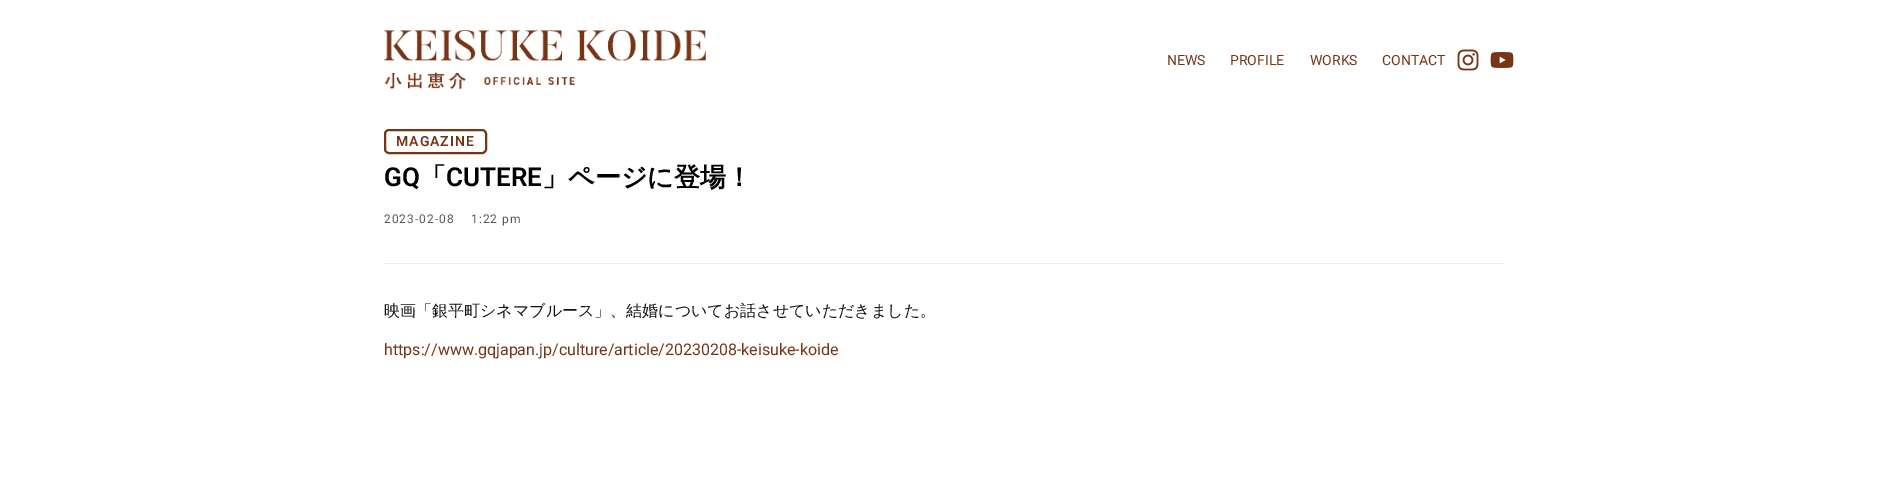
%!PS
<< /PageSize [1888 487] >> setpagedevice
/mt/moveto load def
/st/stroke load def
/lw/setlinewidth load def
/co { dup -16 bitshift 255 div exch dup -8 bitshift 255 and 255 div exch 255 and 255 div setrgbcolor } def
/fn { [ exch dup neg 0 0 3 -1 roll 0 0 ] selectfont } def
/tx { co fn moveto show } def
/bx { co rectfill } def
/rr { 5 dict begin { /r /h /w /y /x } { exch def } forall
  x r add y moveto x w add y 2 copy h add r arct x w add y h add x 1 index r arct
  x y h add x y r arct x y 2 copy exch w add exch r arct closepath end } def
/im { 5 dict begin { /h /w /y /x /name } { exch def } forall
  gsave x y translate w h scale
  w h 8 [w 0 0 h 0 0] name (r) file false 3 colorimage grestore end } def
0 487 translate 1 -1 scale
4 setmiterlimit
0 0 1888 487 16#FFFFFF bx
(media/1.raw) 384 30 322 59 im
(media/2.raw) 1457 49 22 22 im
(media/3.raw) 1490 52 24 16 im
16#763616 co
2 lw
385 130 101 23 4 rr st
384 263 1120 1 16#EEEEEE bx
(NEWS) 1167 65 /Roboto-Regular 14 16#763616 tx
(PROFILE) 1230 65 /Roboto-Regular 14 16#763616 tx
(WORKS) 1310 65 /Roboto-Regular 14 16#763616 tx
(CONTACT) 1382 65 /Roboto-Regular 14 16#763616 tx
/Roboto-SemiBold 14 fn
396 146 mt 1 0 (MAGAZINE) ashow
(GQ) 384 186 /Roboto-SemiBold 26 16#000000 tx
(「) 420 186 /WenQuanYiZenHei-Bold 26 16#000000 tx
(CUTERE) 446 186 /Roboto-SemiBold 26 16#000000 tx
(」ページに登場！) 542 186 /WenQuanYiZenHei-Bold 26 16#000000 tx
/Roboto-Regular 12 fn
16#54595F co
384 223 mt 1 0 (2023-02-08) ashow
471 223 mt 1 0 (1:22 pm) ashow
(映画「銀平町シネマブルース」、結婚についてお話させていただきました。) 384 316 /WenQuanYiZenHei-Medium 16 16#111111 tx
(https://www.gqjapan.jp/culture/article/20230208-keisuke-koide) 384 355 /Roboto-Regular 16 16#763616 tx
showpage
